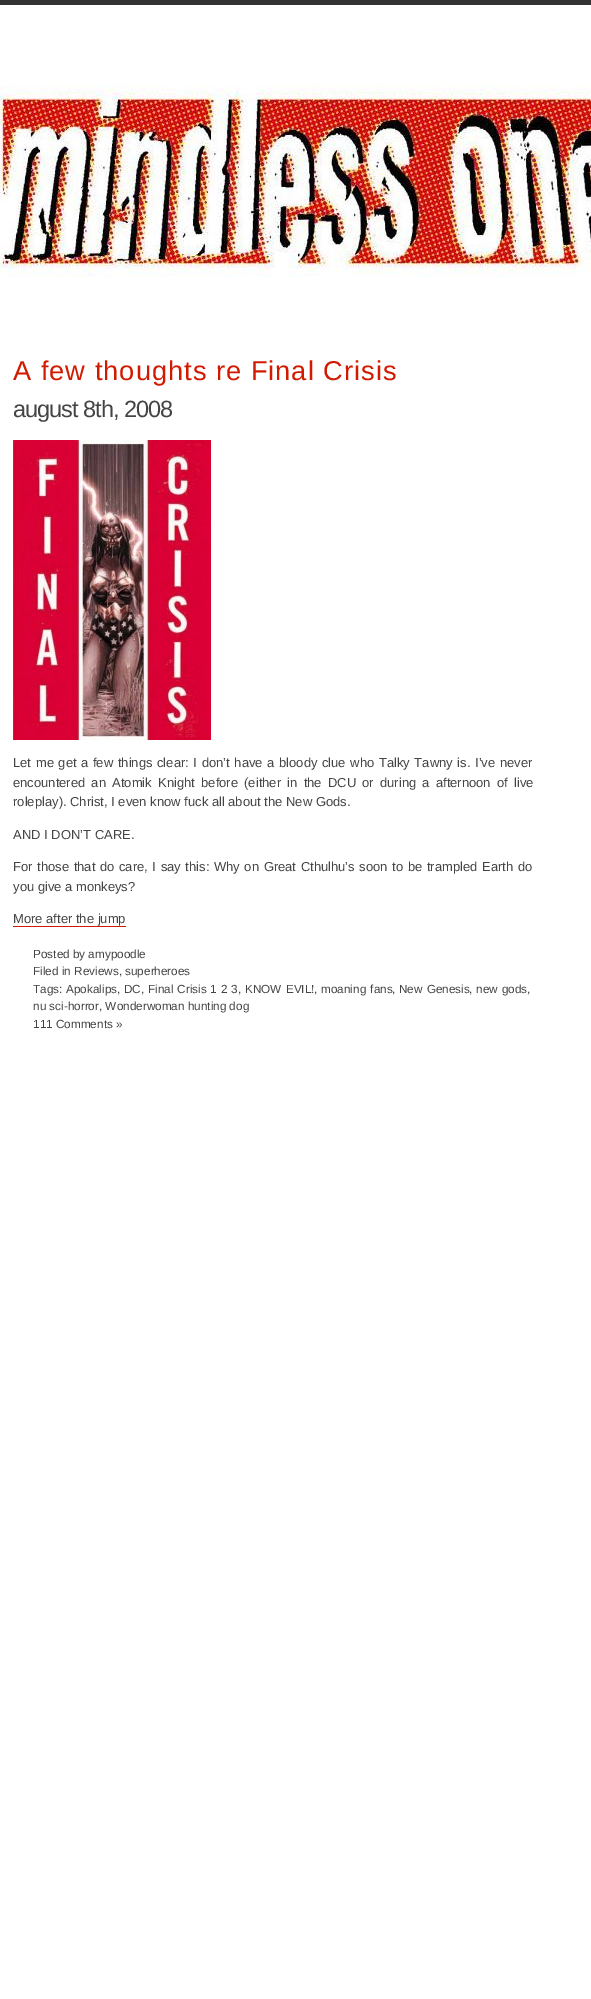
%!PS
<< /PageSize [591 1999] >> setpagedevice
/mt/moveto load def
/co { dup -16 bitshift 255 div exch dup -8 bitshift 255 and 255 div exch 255 and 255 div setrgbcolor } def
/fn { [ exch dup neg 0 0 3 -1 roll 0 0 ] selectfont } def
/tx { co fn moveto show } def
/bx { co rectfill } def
/im { 5 dict begin { /h /w /y /x /name } { exch def } forall
  gsave x y translate w h scale
  w h 8 [w 0 0 h 0 0] name (r) file false 3 colorimage grestore end } def
0 1999 translate 1 -1 scale
4 setmiterlimit
0 0 591 1999 16#FFFFFF bx
0 0 591 5 16#333333 bx
(media/1.raw) 0 85 591 192 im
(media/2.raw) 13 440 198 300 im
13 926 113 1 16#D11B00 bx
/LiberationSans-Regular 27.25 fn
13 380 mt 1 0 (A few thoughts re Final Crisis) ashow
/LiberationSans-Regular 23.5 fn
16#444444 co
13 417 mt -1 0 (august 8th, 2008) ashow
/LiberationSans-Regular 13 fn
13 767 mt 1 0 32 (Let me get a few things clear: I don’t have a bloody clue who Talky Tawny is. I’ve never) widthshow
13 787 mt 2.6 0 32 (encountered an Atomik Knight before \(either in the DCU or during a afternoon of live) widthshow
(roleplay\). Christ, I even know fuck all about the New Gods.) 13 806 /LiberationSans-Regular 13 16#444444 tx
(AND I DON’T CARE.) 13 839 /LiberationSans-Regular 13 16#444444 tx
13 871 mt 1 0 32 (For those that do care, I say this: Why on Great Cthulhu’s soon to be trampled Earth do) widthshow
(you give a monkeys?) 13 891 /LiberationSans-Regular 13 16#444444 tx
(More after the jump) 13 923 /LiberationSans-Regular 13 16#444444 tx
(Posted by amypoodle) 33 958 /LiberationSans-Regular 11.75 16#444444 tx
(Filed in Reviews, superheroes) 33 975 /LiberationSans-Regular 11.75 16#444444 tx
(Tags:) 33 993 /LiberationSans-Regular 11.75 16#444444 tx
(Apokalips,) 66 993 /LiberationSans-Regular 11.75 16#444444 tx
(DC,) 124 993 /LiberationSans-Regular 11.75 16#444444 tx
148 993 mt .5 0 32 (Final Crisis 1 2 3) widthshow
(,) 238 993 /LiberationSans-Regular 11.75 16#444444 tx
245 993 mt 1 0 32 (KNOW EVIL!) widthshow
(,) 314 993 /LiberationSans-Regular 11.75 16#444444 tx
321 993 mt 1 0 32 (moaning fans) widthshow
(,) 392 993 /LiberationSans-Regular 11.75 16#444444 tx
399 993 mt 1 0 32 (New Genesis) widthshow
(,) 469 993 /LiberationSans-Regular 11.75 16#444444 tx
476 993 mt 1 0 32 (new gods) widthshow
(,) 527 993 /LiberationSans-Regular 11.75 16#444444 tx
(nu sci-horror, Wonderwoman hunting dog) 33 1010 /LiberationSans-Regular 11.75 16#444444 tx
(111 Comments ») 33 1028 /LiberationSans-Regular 11.75 16#444444 tx
showpage
